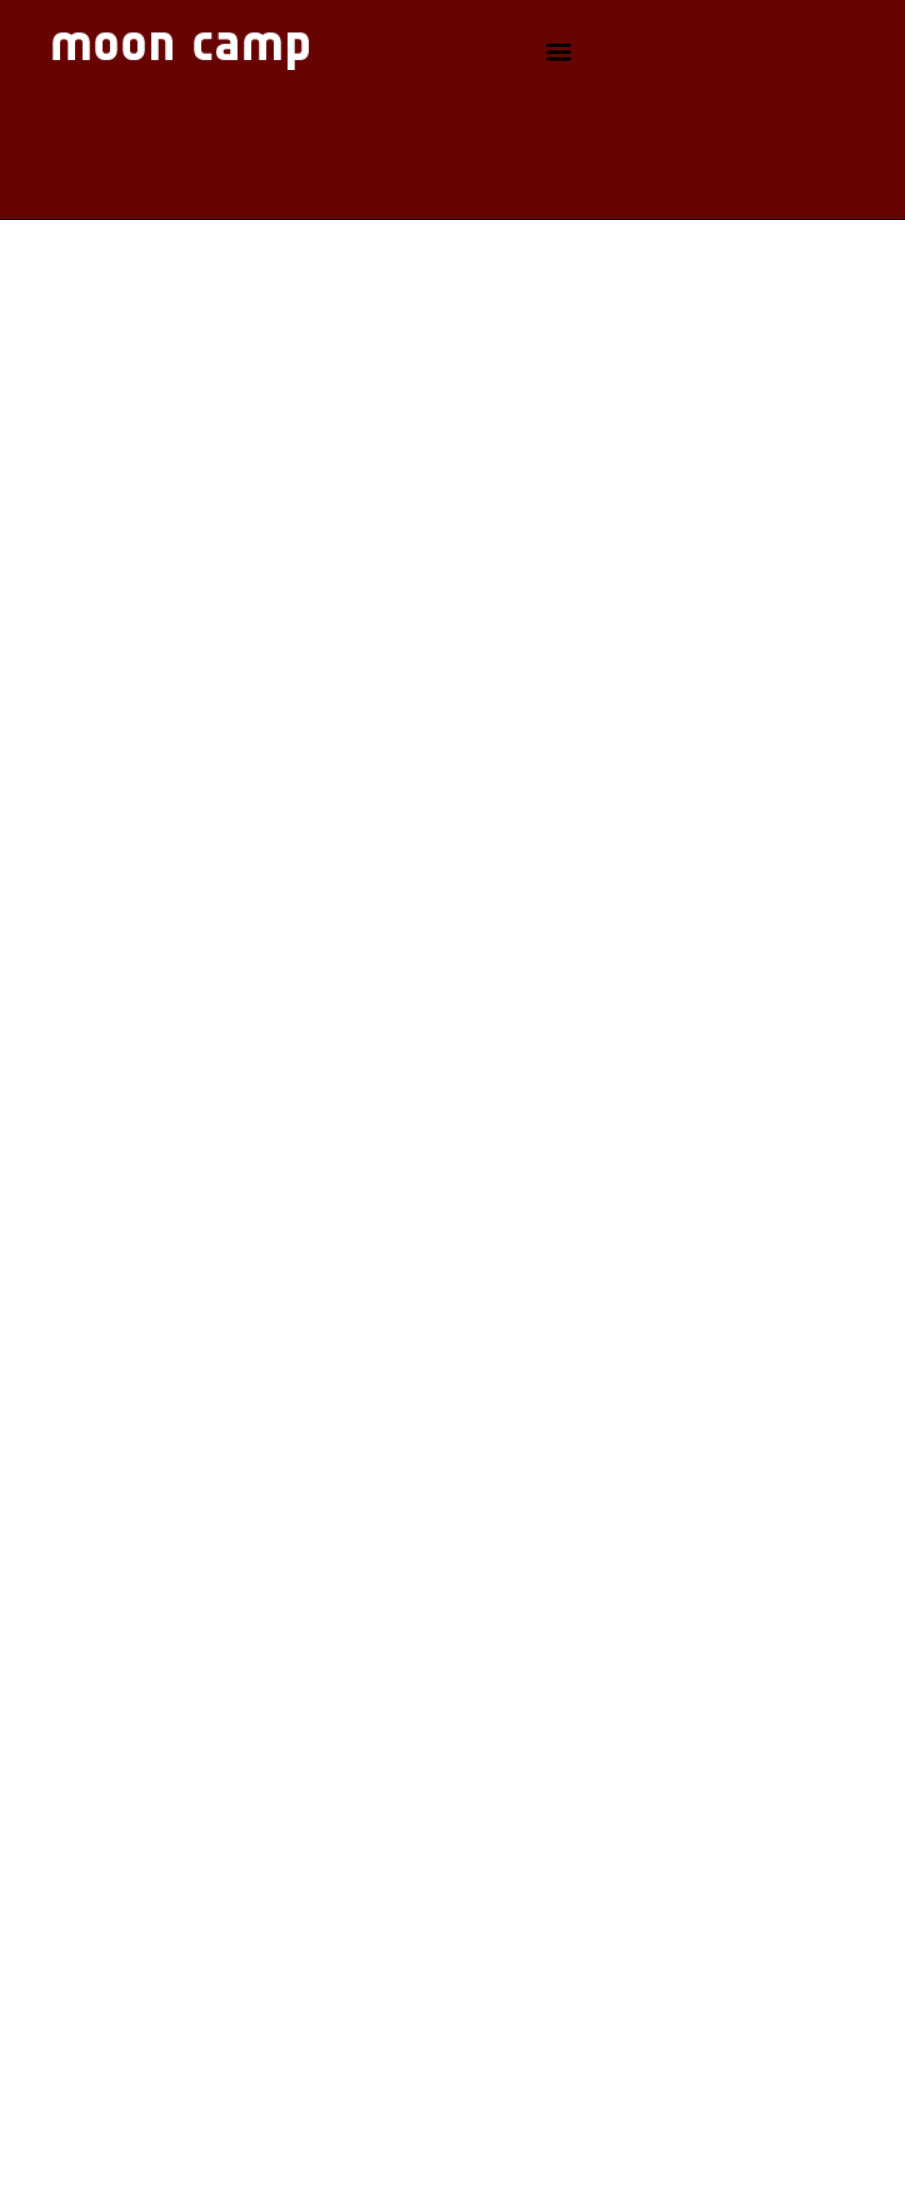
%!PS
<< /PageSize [905 2192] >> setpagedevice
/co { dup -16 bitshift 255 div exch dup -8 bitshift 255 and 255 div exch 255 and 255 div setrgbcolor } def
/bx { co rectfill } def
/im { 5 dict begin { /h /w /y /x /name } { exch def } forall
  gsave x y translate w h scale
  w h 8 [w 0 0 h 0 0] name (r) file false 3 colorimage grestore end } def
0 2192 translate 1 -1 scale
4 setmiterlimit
0 0 905 2192 16#FFFFFF bx
0 0 905 219 16#660303 bx
0 219 905 1 16#000000 bx
(media/1.raw) 52 32 257 38 im
(media/2.raw) 546 43 26 18 im
showpage
